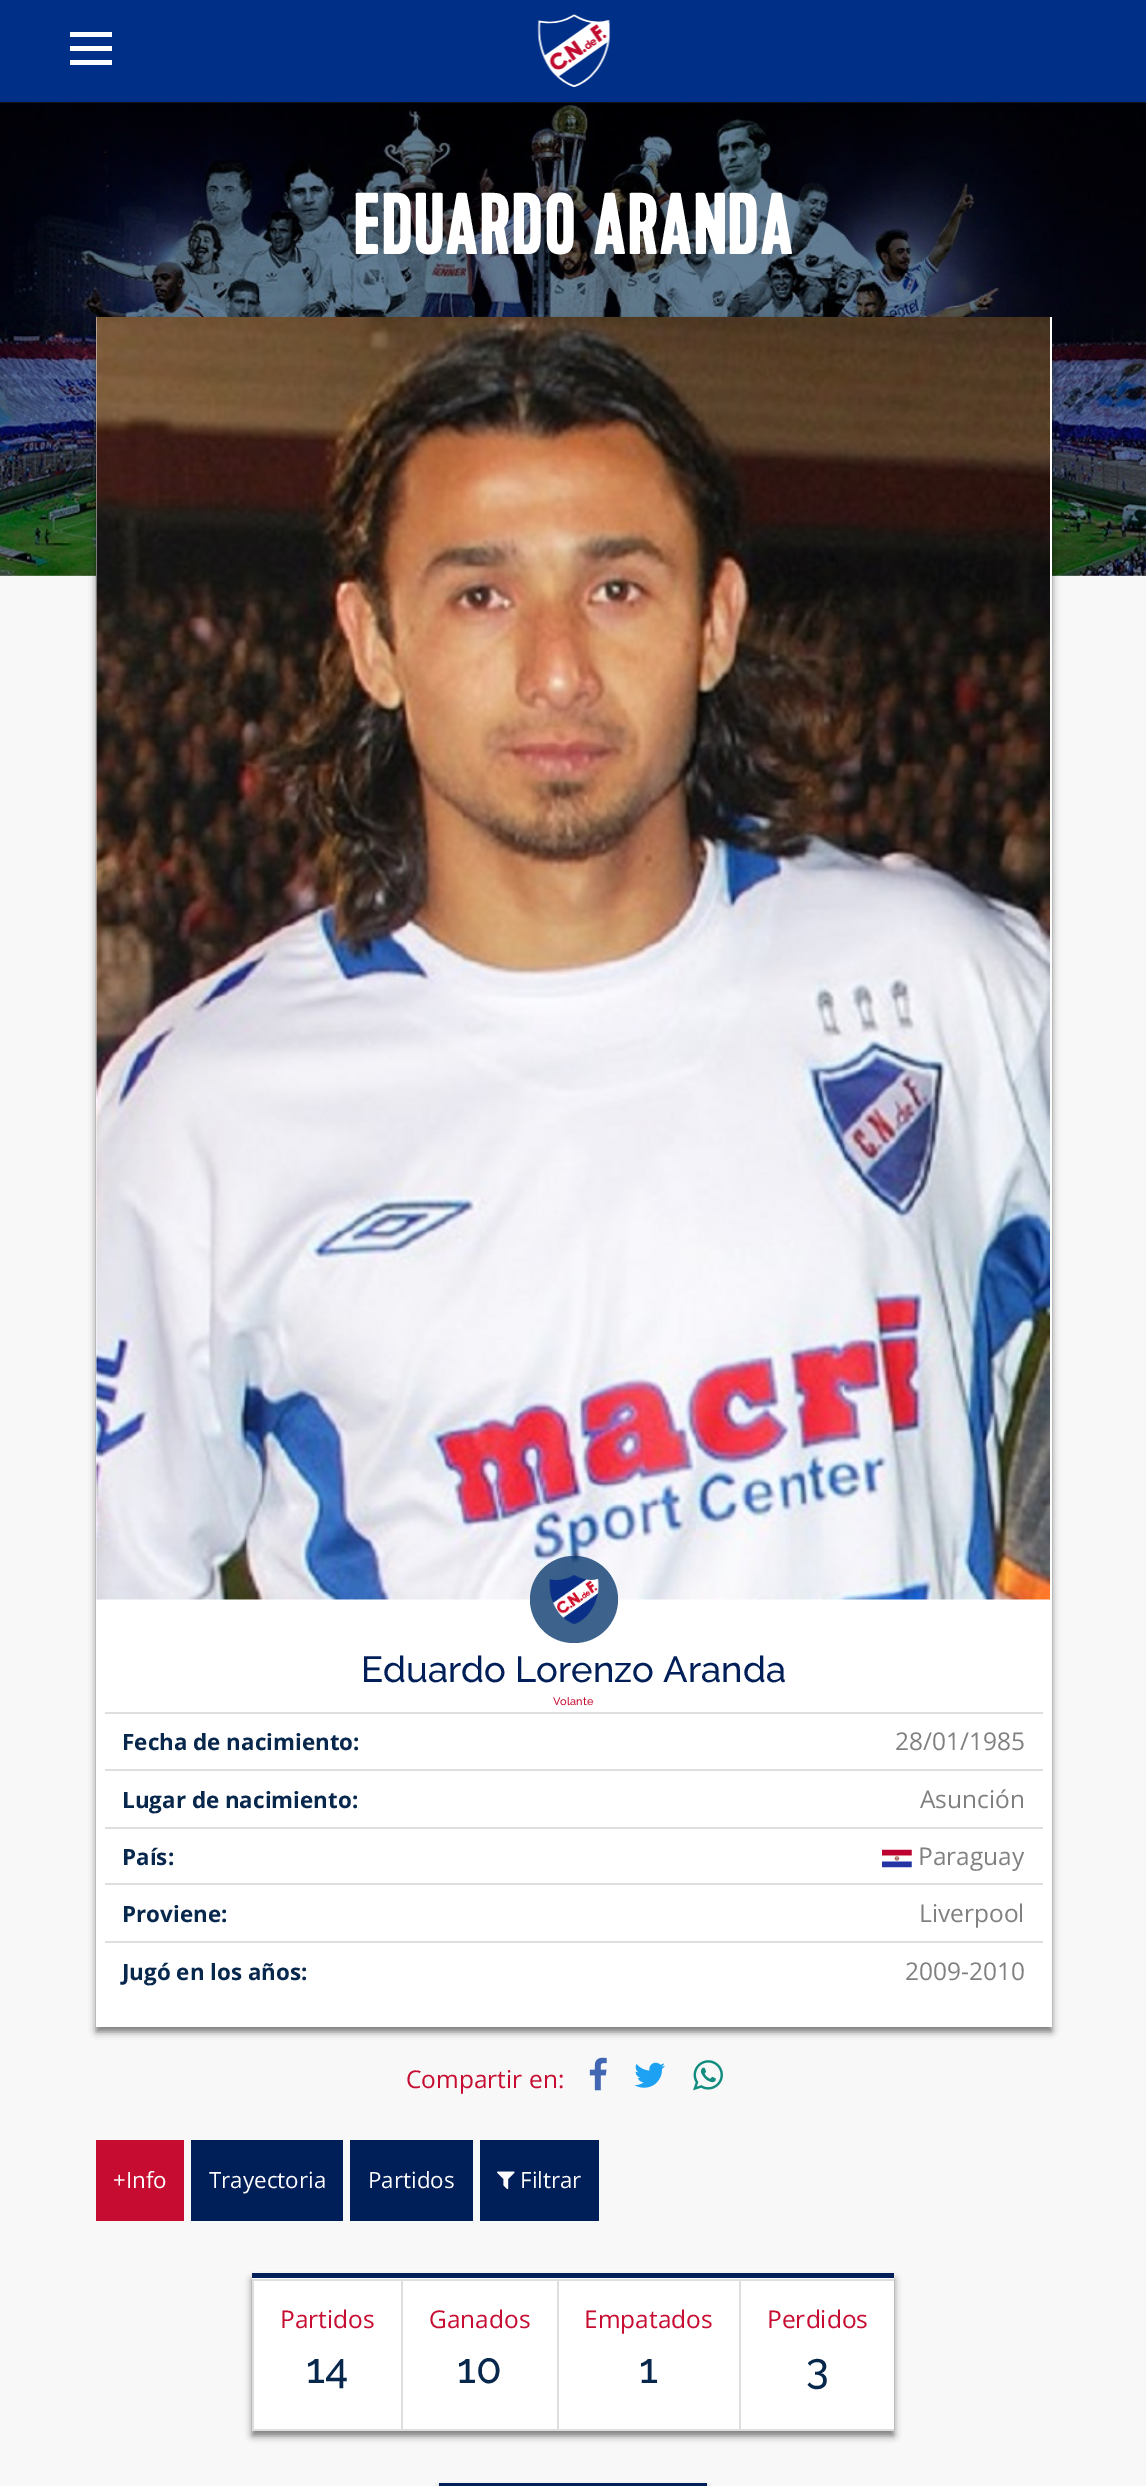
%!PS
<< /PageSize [1146 2486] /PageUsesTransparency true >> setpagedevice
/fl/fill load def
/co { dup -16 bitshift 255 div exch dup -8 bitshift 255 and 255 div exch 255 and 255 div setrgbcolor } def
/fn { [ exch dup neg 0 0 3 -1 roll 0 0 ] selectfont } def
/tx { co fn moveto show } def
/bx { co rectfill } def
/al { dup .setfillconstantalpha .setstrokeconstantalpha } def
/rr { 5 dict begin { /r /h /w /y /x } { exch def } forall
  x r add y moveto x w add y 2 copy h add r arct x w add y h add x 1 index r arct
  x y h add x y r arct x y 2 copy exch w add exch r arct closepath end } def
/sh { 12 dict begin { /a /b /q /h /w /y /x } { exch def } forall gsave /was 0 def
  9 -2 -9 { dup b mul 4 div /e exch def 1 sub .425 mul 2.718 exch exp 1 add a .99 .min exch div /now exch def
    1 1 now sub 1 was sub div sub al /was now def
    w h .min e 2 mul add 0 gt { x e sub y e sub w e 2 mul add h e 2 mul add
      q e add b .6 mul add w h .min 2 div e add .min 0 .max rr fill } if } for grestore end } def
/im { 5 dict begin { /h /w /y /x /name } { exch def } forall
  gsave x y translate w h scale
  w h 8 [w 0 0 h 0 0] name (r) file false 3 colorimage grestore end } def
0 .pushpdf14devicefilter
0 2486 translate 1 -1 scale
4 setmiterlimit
0 0 1146 2486 16#F8F8F8 bx
(media/2.raw) 0 102 1146 474 im
16#000000 co
0 4 1146 101 0 3.5 .15 sh
0 0 1146 102 16#002F87 bx
70 32 42 5 16#FFFFFF bx
70 46 42 5 16#FFFFFF bx
70 60 42 5 16#FFFFFF bx
(media/1.raw) 537 14 74 73 im
16#000000 co
96 322 956 1710 0 3.5 .5 sh
96 317 956 1710 16#FFFFFF bx
(media/3.raw) 96 316 954 1284 im
0.8 al
16#0D3C70 co
530 1556 88 87 43.5 rr fl
1 al
(media/4.raw) 549 1575 50 49 im
105 1712 938 2 16#DEDEDE bx
105 1769 938 2 16#DEDEDE bx
105 1827 938 2 16#DEDEDE bx
(media/5.raw) 882 1849 30 19 im
105 1883 938 2 16#DEDEDE bx
105 1941 938 2 16#DEDEDE bx
(media/6.raw) 589 2057 18 34 im
(media/7.raw) 634 2062 31 26 im
(media/8.raw) 693 2060 30 31 im
96 2140 88 81 16#C60C30 bx
191 2140 152 81 16#001E57 bx
350 2140 123 81 16#001E57 bx
480 2140 119 81 16#001E57 bx
(media/9.raw) 497 2171 18 19 im
16#000000 co
252 2279 642 157 0 3.5 .5 sh
252 2278 642 151 16#FFFFFF bx
252 2273 642 5 16#001E57 bx
252 2279 642 2 16#DEDEDE bx
252 2429 642 2 16#DEDEDE bx
252 2279 2 152 16#DEDEDE bx
401 2279 2 152 16#DEDEDE bx
557 2279 2 152 16#DEDEDE bx
739 2279 2 152 16#DEDEDE bx
16#000000 co
439 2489 268 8 0 3.5 .5 sh
439 2483 268 3 16#001E57 bx
(EDUARDO ARANDA) 353 254 /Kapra-Bold 87.5 16#FFFFFF tx
(Eduardo Lorenzo Aranda) 361 1682 /Raleway-Medium 36.4 16#001E57 tx
(Volante) 553 1705 /Raleway-Medium 11 16#C60C30 tx
(Fecha de nacimiento:) 122 1750 /OpenSans-Bold 22.4 16#07284C tx
(28/01/1985) 895 1750 /OpenSans-Regular 24.5 16#808080 tx
(Lugar de nacimiento:) 122 1808 /OpenSans-Bold 22.4 16#07284C tx
(Asunción) 920 1808 /OpenSans-Regular 24.5 16#808080 tx
(País:) 122 1865 /OpenSans-Bold 22.4 16#07284C tx
(Paraguay) 918 1865 /OpenSans-Regular 24.5 16#808080 tx
(Proviene:) 122 1922 /OpenSans-Bold 22.4 16#07284C tx
(Liverpool) 919 1922 /OpenSans-Regular 24.5 16#808080 tx
(Jugó en los años:) 122 1980 /OpenSans-Bold 22.4 16#07284C tx
(2009-2010) 905 1980 /OpenSans-Regular 24.5 16#808080 tx
(Compartir en:) 406 2088 /OpenSans-Regular 24.5 16#C60C30 tx
(+Info) 113 2188 /OpenSans-Regular 22.4 16#FFFFFF tx
(Trayectoria) 209 2188 /OpenSans-Regular 22.4 16#FFFFFF tx
(Partidos) 368 2188 /OpenSans-Regular 22.4 16#FFFFFF tx
(Filtrar) 520 2188 /OpenSans-Regular 22.4 16#FFFFFF tx
(Partidos) 280 2328 /OpenSans-Regular 24.5 16#C60C30 tx
(14) 306 2383 /Raleway-Medium 42 16#07284C tx
(Ganados) 429 2328 /OpenSans-Regular 24.5 16#C60C30 tx
(10) 457 2383 /Raleway-Medium 42 16#07284C tx
(Empatados) 584 2328 /OpenSans-Regular 24.5 16#C60C30 tx
(1) 639 2383 /Raleway-Medium 42 16#07284C tx
(Perdidos) 767 2328 /OpenSans-Regular 24.5 16#C60C30 tx
(3) 806 2383 /Raleway-Medium 42 16#07284C tx
.poppdf14devicefilter showpage
